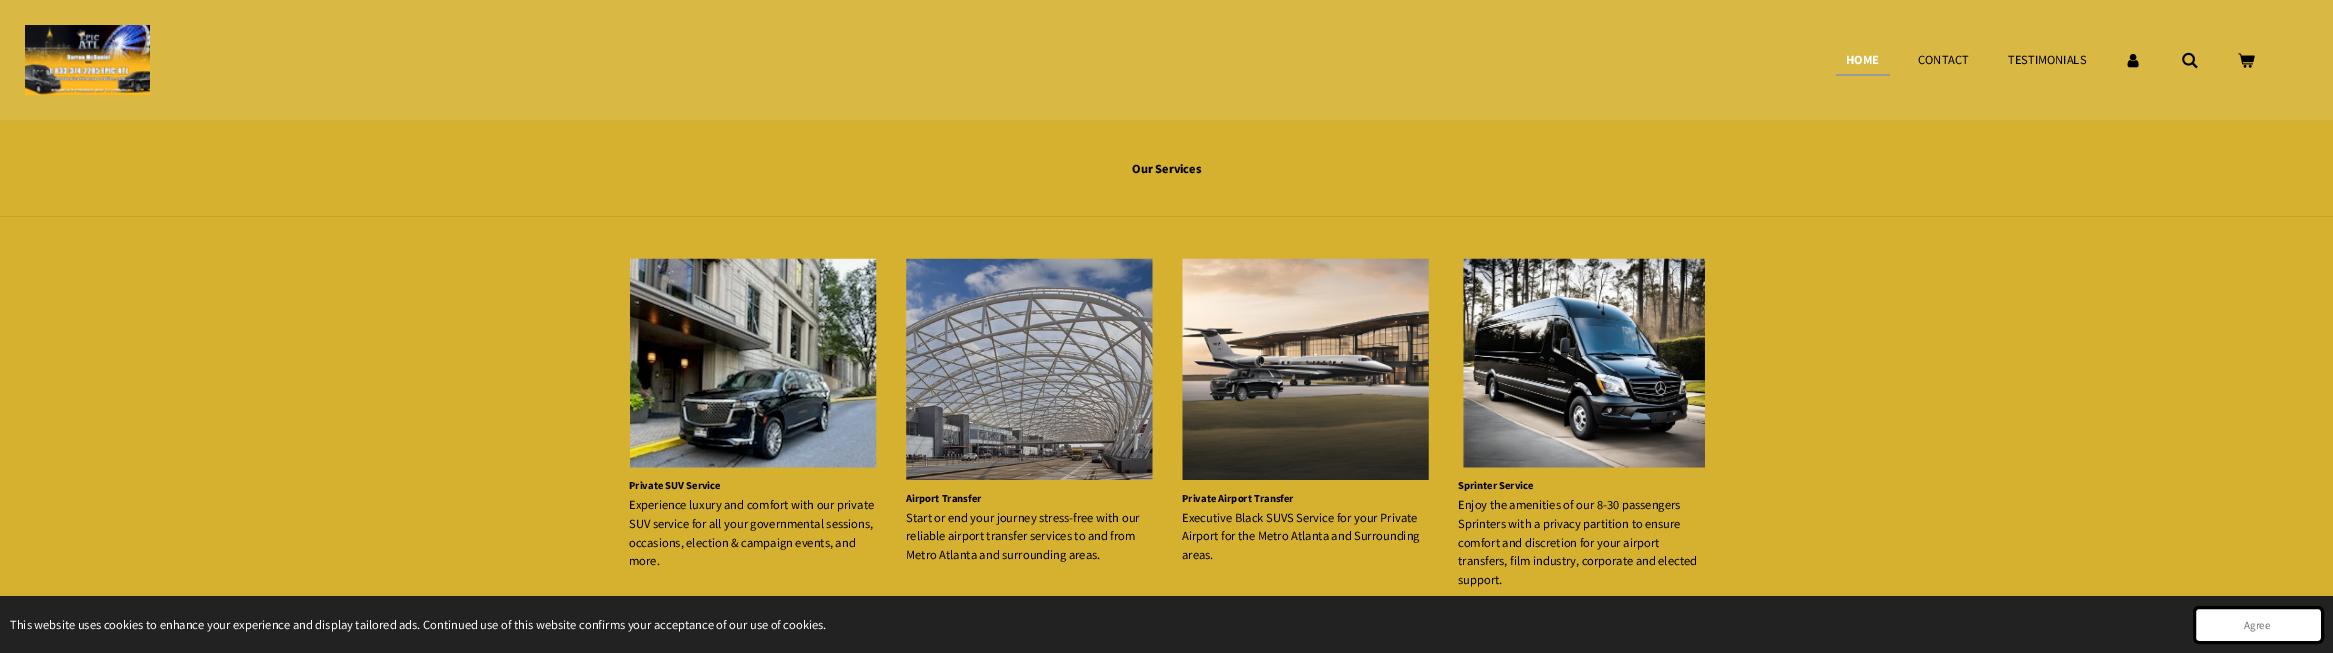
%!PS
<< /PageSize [2333 653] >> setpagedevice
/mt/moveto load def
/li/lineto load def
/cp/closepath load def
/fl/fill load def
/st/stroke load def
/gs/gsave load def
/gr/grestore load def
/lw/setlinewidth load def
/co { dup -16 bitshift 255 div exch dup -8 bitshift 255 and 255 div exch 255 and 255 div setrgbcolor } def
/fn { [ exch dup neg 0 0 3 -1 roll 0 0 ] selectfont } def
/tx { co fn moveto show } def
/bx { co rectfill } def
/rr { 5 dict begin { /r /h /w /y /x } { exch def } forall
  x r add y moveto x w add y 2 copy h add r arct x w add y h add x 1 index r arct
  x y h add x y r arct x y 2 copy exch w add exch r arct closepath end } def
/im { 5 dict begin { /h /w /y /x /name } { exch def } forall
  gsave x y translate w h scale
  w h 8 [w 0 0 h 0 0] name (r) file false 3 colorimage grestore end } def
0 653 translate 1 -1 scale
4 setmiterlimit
0 0 2333 653 16#DAB844 bx
(media/1.raw) 25 25 125 70 im
16#999999 co
1836 50 mt 1836 76 li 1890 76 li 1890 74 li 1836 74 li cp fl
(media/2.raw) 2127 54 12 14 im
(media/3.raw) 2182 52 16 17 im
(media/4.raw) 2238 53 17 15 im
0 120 2333 96 16#D6B02F bx
0 217 2333 379 16#D6B02F bx
0 216 2333 1 16#C5A22B bx
(media/5.raw) 630 258 247 210 im
(media/6.raw) 906 258 247 222 im
(media/7.raw) 1182 258 247 222 im
(media/8.raw) 1463 258 242 210 im
0 596 2333 57 16#222222 bx
16#FFFFFF co
2194.5 607.5 128 35 4.5 rr gs fl gr
16#000000 co
3 lw
st
(HOME) 1846 64 /SourceSansPro-Bold 12.5 16#FFFFFF tx
(CONTACT) 1918 64 /SourceSansPro-Regular 12.5 16#000000 tx
(TESTIMONIALS) 2008 64 /SourceSansPro-Regular 12.5 16#000000 tx
(Our Services) 1132 173 /SourceSansPro-Bold 12.5 16#000000 tx
(Private SUV Service) 629 489 /SourceSansPro-Bold 10.6 16#000000 tx
(Experience luxury and comfort with our private) 629 509 /SourceSansPro-Regular 12.5 16#000000 tx
(SUV service for all your governmental sessions,) 629 528 /SourceSansPro-Regular 12.5 16#000000 tx
(occasions, election & campaign events, and) 629 547 /SourceSansPro-Regular 12.5 16#000000 tx
(more.) 629 565 /SourceSansPro-Regular 12.5 16#000000 tx
(Airport Transfer) 906 502 /SourceSansPro-Bold 10.6 16#000000 tx
(Start or end your journey stress-free with our) 906 522 /SourceSansPro-Regular 12.5 16#000000 tx
(reliable airport transfer services to and from) 906 540 /SourceSansPro-Regular 12.5 16#000000 tx
(Metro Atlanta and surrounding areas.) 906 559 /SourceSansPro-Regular 12.5 16#000000 tx
(Private Airport Transfer) 1182 502 /SourceSansPro-Bold 10.6 16#000000 tx
(Executive Black SUVS Service for your Private) 1182 522 /SourceSansPro-Regular 12.5 16#000000 tx
(Airport for the Metro Atlanta and Surrounding) 1182 540 /SourceSansPro-Regular 12.5 16#000000 tx
(areas.) 1182 559 /SourceSansPro-Regular 12.5 16#000000 tx
(Sprinter Service) 1458 489 /SourceSansPro-Bold 10.6 16#000000 tx
(Enjoy the amenities of our 8-30 passengers) 1458 509 /SourceSansPro-Regular 12.5 16#000000 tx
(Sprinters with a privacy partition to ensure) 1458 528 /SourceSansPro-Regular 12.5 16#000000 tx
(comfort and discretion for your airport) 1458 547 /SourceSansPro-Regular 12.5 16#000000 tx
(transfers, film industry, corporate and elected) 1458 565 /SourceSansPro-Regular 12.5 16#000000 tx
(support.) 1458 584 /SourceSansPro-Regular 12.5 16#000000 tx
(This website uses cookies to enhance your experience and display tailored ads. Continued use of this website confirms your acceptance of our use of cookies.) 10 629 /SourceSansPro-Regular 12.5 16#FFFFFF tx
(Agree) 2244 629 /SourceSansPro-Regular 11 16#737373 tx
showpage
